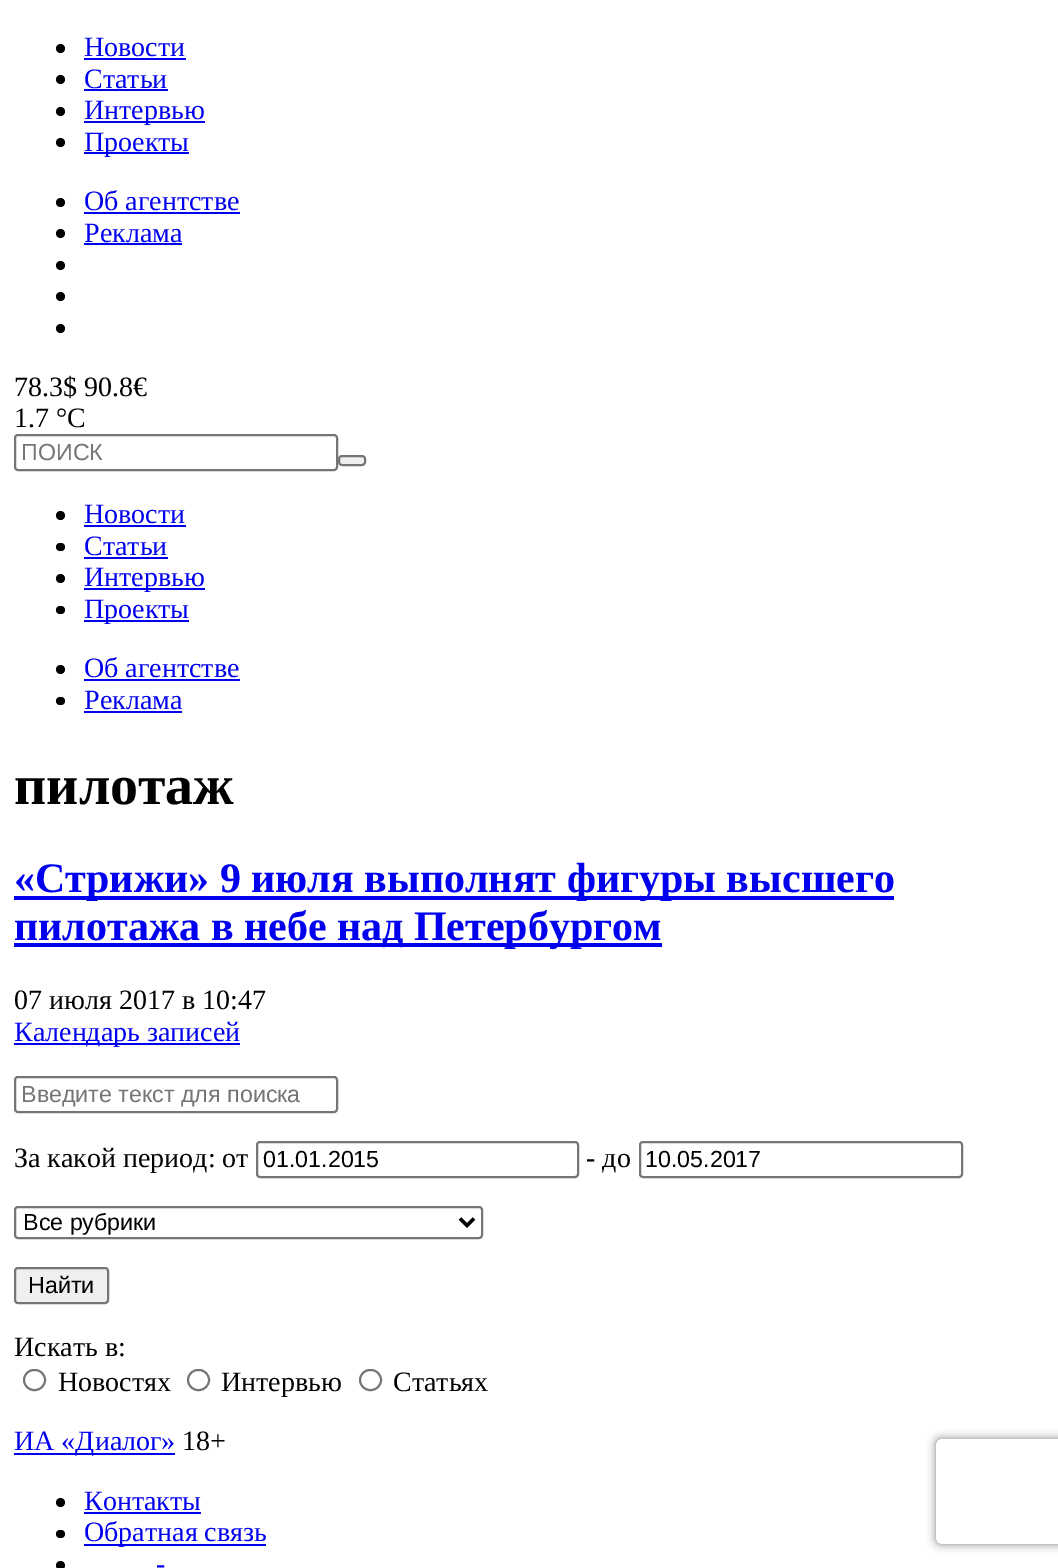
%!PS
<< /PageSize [1058 1568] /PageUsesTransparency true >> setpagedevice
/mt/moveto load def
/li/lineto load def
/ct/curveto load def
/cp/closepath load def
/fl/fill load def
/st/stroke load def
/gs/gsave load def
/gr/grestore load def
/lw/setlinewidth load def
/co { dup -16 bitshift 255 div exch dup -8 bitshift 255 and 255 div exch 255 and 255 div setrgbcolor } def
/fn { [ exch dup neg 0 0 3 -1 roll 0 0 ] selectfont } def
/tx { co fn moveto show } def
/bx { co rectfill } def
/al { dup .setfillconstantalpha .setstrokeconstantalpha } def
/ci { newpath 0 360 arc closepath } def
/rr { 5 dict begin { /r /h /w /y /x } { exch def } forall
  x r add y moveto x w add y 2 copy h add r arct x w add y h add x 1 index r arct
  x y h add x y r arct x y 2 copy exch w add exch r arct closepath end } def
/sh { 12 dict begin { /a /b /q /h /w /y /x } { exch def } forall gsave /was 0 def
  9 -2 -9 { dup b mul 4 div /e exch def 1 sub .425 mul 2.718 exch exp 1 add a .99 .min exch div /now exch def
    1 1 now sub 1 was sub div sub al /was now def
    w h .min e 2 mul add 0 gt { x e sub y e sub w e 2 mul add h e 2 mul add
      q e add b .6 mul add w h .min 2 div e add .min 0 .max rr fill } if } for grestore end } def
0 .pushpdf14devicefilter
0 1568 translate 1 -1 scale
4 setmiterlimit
0 0 1058 1568 16#FFFFFF bx
16#000000 co
60.5 48.5 4.5 ci fl
84 58 102 2 16#0000EE bx
16#000000 co
60.5 79.5 4.5 ci fl
84 89 84 2 16#0000EE bx
16#000000 co
60.5 111.5 4.5 ci fl
84 121 121 2 16#0000EE bx
16#000000 co
60.5 142.5 4.5 ci fl
84 152 105 2 16#0000EE bx
16#000000 co
60.5 202.5 4.5 ci fl
84 212 156 2 16#0000EE bx
16#000000 co
60.5 233.5 4.5 ci fl
84 243 98 2 16#0000EE bx
16#000000 co
60.5 265.5 4.5 ci fl
60.5 296.5 4.5 ci fl
60.5 328.5 4.5 ci fl
16#767676 co
2 lw
15 435 322 35 3 rr st
16#EFEFEF co
339 456 26 9 3 rr gs fl gr
16#767676 co
st
16#000000 co
60.5 515.5 4.5 ci fl
84 525 102 2 16#0000EE bx
16#000000 co
56 543 9 8 4 rr fl
84 557 84 2 16#0000EE bx
16#000000 co
60.5 578.5 4.5 ci fl
84 588 121 2 16#0000EE bx
16#000000 co
56 606 9 8 4 rr fl
84 620 105 2 16#0000EE bx
16#000000 co
60.5 669.5 4.5 ci fl
84 679 156 2 16#0000EE bx
16#000000 co
56 697 9 8 4 rr fl
84 711 98 2 16#0000EE bx
14 896 880 4 16#0000EE bx
14 943 648 4 16#0000EE bx
14 1043 226 2 16#0000EE bx
16#767676 co
15 1077 322 35 3 rr st
257 1142 321 35 3 rr st
640 1142 322 35 3 rr st
15 1207 467 31 3 rr st
16#000000 co
3.5 lw
460 1218.5 mt 467 1225.5 li 474 1218.5 li st
16#EFEFEF co
15 1268 93 35 3 rr gs fl gr
16#767676 co
2 lw
st
24 1370 21 20 10 rr st
188 1370 21 20 10 rr st
360 1370 21 20 10 rr st
14 1453 161 2 16#0000EE bx
16#000000 co
60.5 1502.5 4.5 ci fl
84 1512 117 2 16#0000EE bx
16#000000 co
56 1530 9 8 4 rr fl
84 1544 182 2 16#0000EE bx
16#000000 co
60.5 1565.5 4.5 ci fl
gs
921 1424 mt 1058 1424 li 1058 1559 li 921 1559 li cp 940 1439 mt 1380 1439 li 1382 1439 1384 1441 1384 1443 ct 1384 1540 li 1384 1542 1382 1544 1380 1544 ct 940 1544 li 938 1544 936 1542 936 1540 ct 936 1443 li 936 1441 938 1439 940 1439 ct cp eoclip newpath
16#808080 co
936 1439 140 105 4 4.5 1 sh
gr
(Новости) 84 56 /LiberationSerif-Regular 28 16#0000EE tx
(Статьи) 84 88 /LiberationSerif-Regular 28 16#0000EE tx
(Интервью) 84 119 /LiberationSerif-Regular 28 16#0000EE tx
(Проекты) 84 151 /LiberationSerif-Regular 28 16#0000EE tx
(Об агентстве) 84 210 /LiberationSerif-Regular 28 16#0000EE tx
(Реклама) 84 242 /LiberationSerif-Regular 28 16#0000EE tx
(78.3$ 90.8€) 14 396 /LiberationSerif-Regular 28 16#000000 tx
(1.7 °С) 14 427 /LiberationSerif-Regular 28 16#000000 tx
(ПОИСК) 21 460 /LiberationSans-Regular 23.25 16#757575 tx
(Новости) 84 523 /LiberationSerif-Regular 28 16#0000EE tx
(Статьи) 84 555 /LiberationSerif-Regular 28 16#0000EE tx
(Интервью) 84 586 /LiberationSerif-Regular 28 16#0000EE tx
(Проекты) 84 618 /LiberationSerif-Regular 28 16#0000EE tx
(Об агентстве) 84 677 /LiberationSerif-Regular 28 16#0000EE tx
(Реклама) 84 709 /LiberationSerif-Regular 28 16#0000EE tx
(пилотаж) 14 804 /LiberationSerif-Bold 56 16#000000 tx
(«Стрижи» 9 июля выполнят фигуры высшего) 14 892 /LiberationSerif-Bold 42 16#0000EE tx
(пилотажа в небе над Петербургом) 14 940 /LiberationSerif-Bold 42 16#0000EE tx
(07 июля 2017 в 10:47) 14 1009 /LiberationSerif-Regular 28 16#000000 tx
(Календарь записей) 14 1041 /LiberationSerif-Regular 28 16#0000EE tx
(Введите текст для поиска) 21 1102 /LiberationSans-Regular 23.25 16#757575 tx
(За какой период: от) 14 1167 /LiberationSerif-Regular 28 16#000000 tx
(01.01.2015) 263 1167 /LiberationSans-Regular 23.25 16#000000 tx
(- до) 586 1167 /LiberationSerif-Regular 28 16#000000 tx
(10.05.2017) 645 1167 /LiberationSans-Regular 23.25 16#000000 tx
(Все рубрики) 23 1230 /LiberationSans-Regular 23.25 16#000000 tx
(Найти) 28 1293 /LiberationSans-Regular 23.25 16#000000 tx
(Искать в:) 14 1356 /LiberationSerif-Regular 28 16#000000 tx
(Новостях) 58 1391 /LiberationSerif-Regular 28 16#000000 tx
(Интервью) 221 1391 /LiberationSerif-Regular 28 16#000000 tx
(Статьях) 393 1391 /LiberationSerif-Regular 28 16#000000 tx
(ИА «Диалог») 14 1450 /LiberationSerif-Regular 28 16#0000EE tx
(18+) 182 1450 /LiberationSerif-Regular 28 16#000000 tx
(Контакты) 84 1510 /LiberationSerif-Regular 28 16#0000EE tx
(Обратная связь) 84 1541 /LiberationSerif-Regular 28 16#0000EE tx
(-) 156 1573 /LiberationSerif-Regular 28 16#0000EE tx
.poppdf14devicefilter showpage
